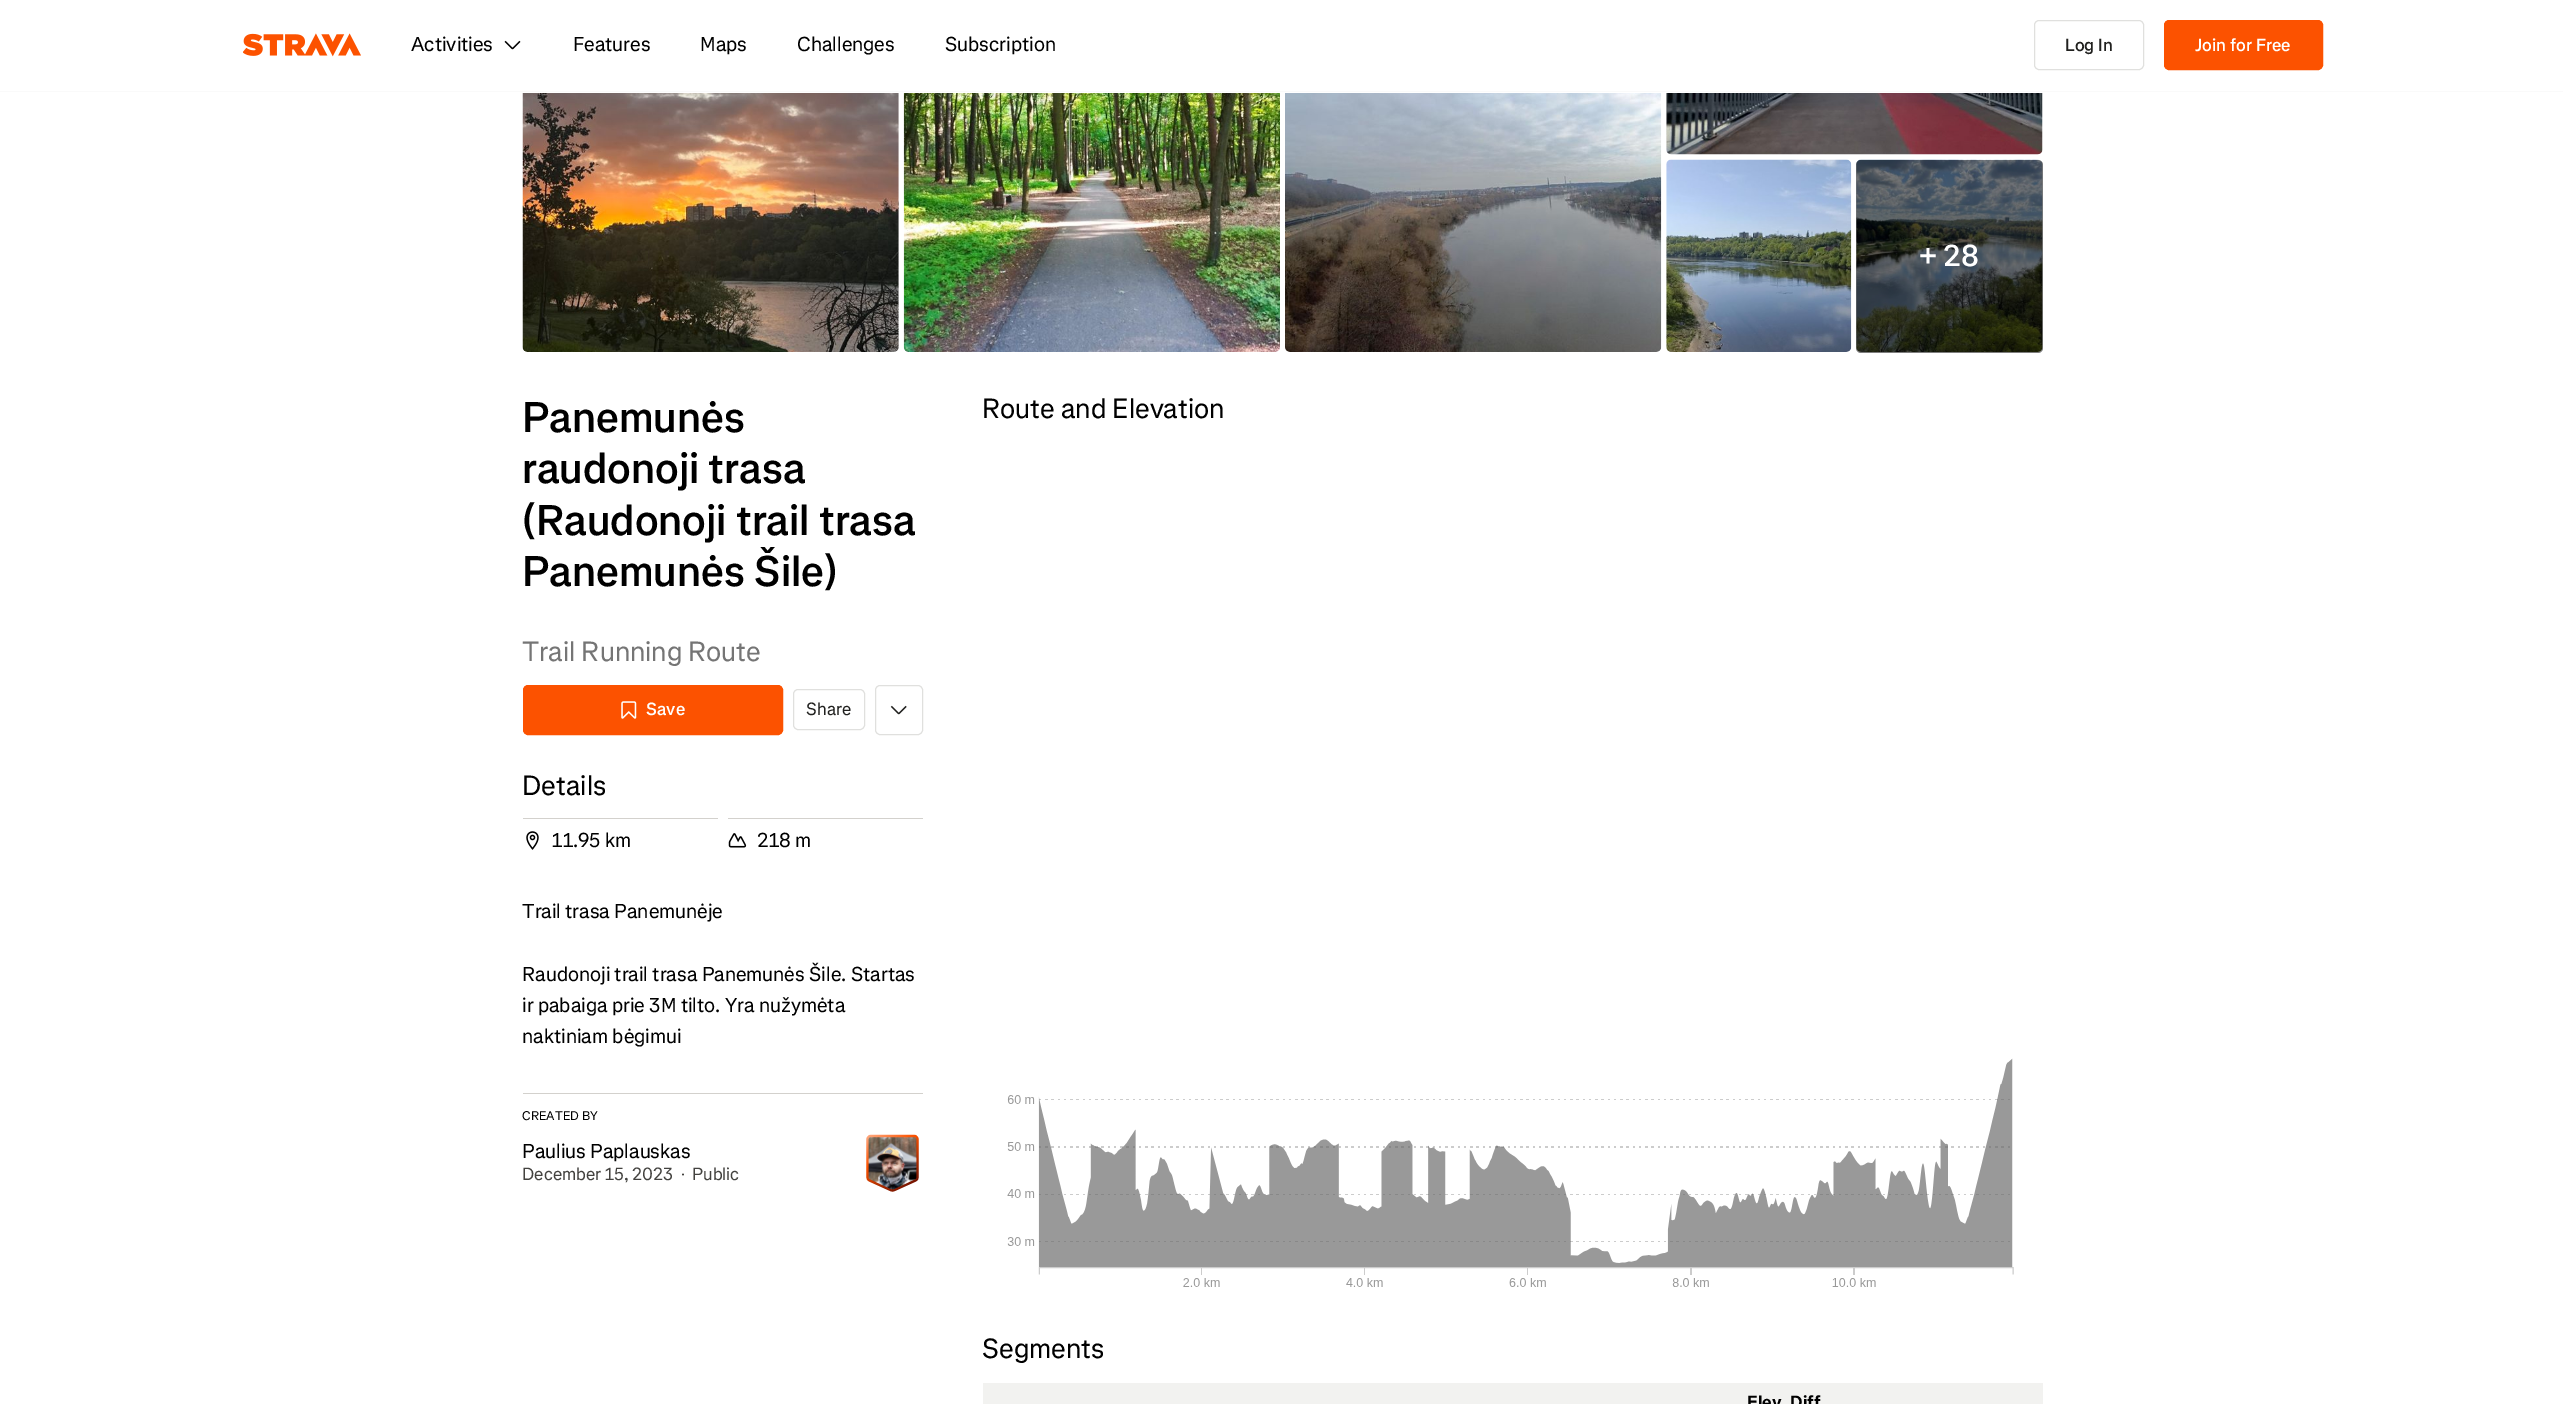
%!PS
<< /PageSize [2563 1404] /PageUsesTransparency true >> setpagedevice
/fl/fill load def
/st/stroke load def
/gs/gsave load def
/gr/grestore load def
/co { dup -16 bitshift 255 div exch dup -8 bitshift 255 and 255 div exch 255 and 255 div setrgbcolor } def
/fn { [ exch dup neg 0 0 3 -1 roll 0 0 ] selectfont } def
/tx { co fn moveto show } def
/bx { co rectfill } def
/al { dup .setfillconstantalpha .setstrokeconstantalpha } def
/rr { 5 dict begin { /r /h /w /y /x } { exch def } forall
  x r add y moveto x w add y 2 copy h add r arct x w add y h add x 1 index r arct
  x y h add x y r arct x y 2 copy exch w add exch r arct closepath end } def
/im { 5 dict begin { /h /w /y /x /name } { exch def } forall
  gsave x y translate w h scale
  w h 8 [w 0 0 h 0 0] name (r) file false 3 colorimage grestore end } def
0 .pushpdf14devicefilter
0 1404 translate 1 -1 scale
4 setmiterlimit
0 0 2563 1404 16#FFFFFF bx
0 91 2563 1 16#FAFAFA bx
(media/1.raw) 243 33 118 24 im
(media/2.raw) 504 40 17 10 im
16#E0E0DE co
2034.5 20.5 109 49 4.5 rr st
16#FC5200 co
2164.5 20.5 158 49 4.5 rr gs fl gr
st
(media/3.raw) 522 93 377 259 im
(media/4.raw) 903 93 377 259 im
(media/5.raw) 1285 93 377 259 im
(media/6.raw) 1666 93 377 62 im
(media/7.raw) 1666 159 186 193 im
(media/8.raw) 1856 159 187 193 im
0.5 al
16#000000 co
1856 160 187 193 5 rr fl
1 al
16#FC5200 co
523.5 685.5 259 49 4.5 rr gs fl gr
st
(media/9.raw) 621 701 16 18 im
16#E0E0DE co
793.5 689.5 71 40 4.5 rr st
875.5 685.5 47 49 4.5 rr st
(media/10.raw) 890 705 17 10 im
523 818 195 1 16#D3D1CD bx
(media/11.raw) 526 831 13 19 im
728 818 195 1 16#D3D1CD bx
(media/12.raw) 728 833 19 15 im
523 1093 400 1 16#D3D1CD bx
(media/13.raw) 866 1134 53 58 im
(media/14.raw) 1007 1058 1007 229 im
983 1383 1060 21 16#F2F2F0 bx
(Activities) 411 51 /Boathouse-Regular 20 16#000000 tx
(Features) 573 51 /Boathouse-Regular 20 16#000000 tx
(Maps) 700 51 /Boathouse-Regular 20 16#000000 tx
(Challenges) 797 51 /Boathouse-Regular 20 16#000000 tx
(Subscription) 945 51 /Boathouse-Regular 20 16#000000 tx
(Log In) 2065 51 /Boathouse-Medium 17.5 16#21211F tx
(Join for Free) 2195 51 /Boathouse-Medium 17.5 16#FFFFFF tx
(+ 28) 1919 266 /Boathouse-Medium 30 16#FFFFFF tx
(Panemunės) 522 432 /Boathouse-Medium 42.5 16#000000 tx
(raudonoji trasa) 522 483 /Boathouse-Medium 42.5 16#000000 tx
(\(Raudonoji trail trasa) 522 535 /Boathouse-Medium 42.5 16#000000 tx
(Panemunės Šile\)) 522 586 /Boathouse-Medium 42.5 16#000000 tx
(Trail Running Route) 522 661 /Boathouse-Regular 27.5 16#757575 tx
(Save) 646 715 /Boathouse-Medium 17.5 16#FFFFFF tx
(Share) 806 715 /Boathouse-Regular 17.5 16#21211F tx
(Details) 522 795 /Boathouse-Regular 27.5 16#000000 tx
(11.95 km) 552 847 /Boathouse-Regular 20 16#000000 tx
(218 m) 757 847 /Boathouse-Regular 20 16#000000 tx
(Trail trasa Panemunėje) 522 918 /Boathouse-Regular 20 16#000000 tx
(Raudonoji trail trasa Panemunės Šile. Startas) 522 981 /Boathouse-Regular 20 16#000000 tx
(ir pabaiga prie 3M tilto. Yra nužymėta) 522 1012 /Boathouse-Regular 20 16#000000 tx
(naktiniam bėgimui) 522 1043 /Boathouse-Regular 20 16#000000 tx
(CREATED BY) 522 1120 /Boathouse-Regular 12.5 16#000000 tx
(Paulius Paplauskas) 522 1158 /Boathouse-Regular 20 16#000000 tx
(December 15, 2023) 522 1180 /Boathouse-Regular 17.5 16#43423F tx
(·) 681 1180 /Boathouse-Regular 17.5 16#43423F tx
(Public) 692 1180 /Boathouse-Regular 17.5 16#43423F tx
(Route and Elevation) 982 418 /Boathouse-Regular 27.5 16#000000 tx
(Segments) 982 1358 /Boathouse-Regular 27.5 16#000000 tx
(Elev. Diff) 1747 1408 /Boathouse-Bold 17.5 16#000000 tx
.poppdf14devicefilter showpage
